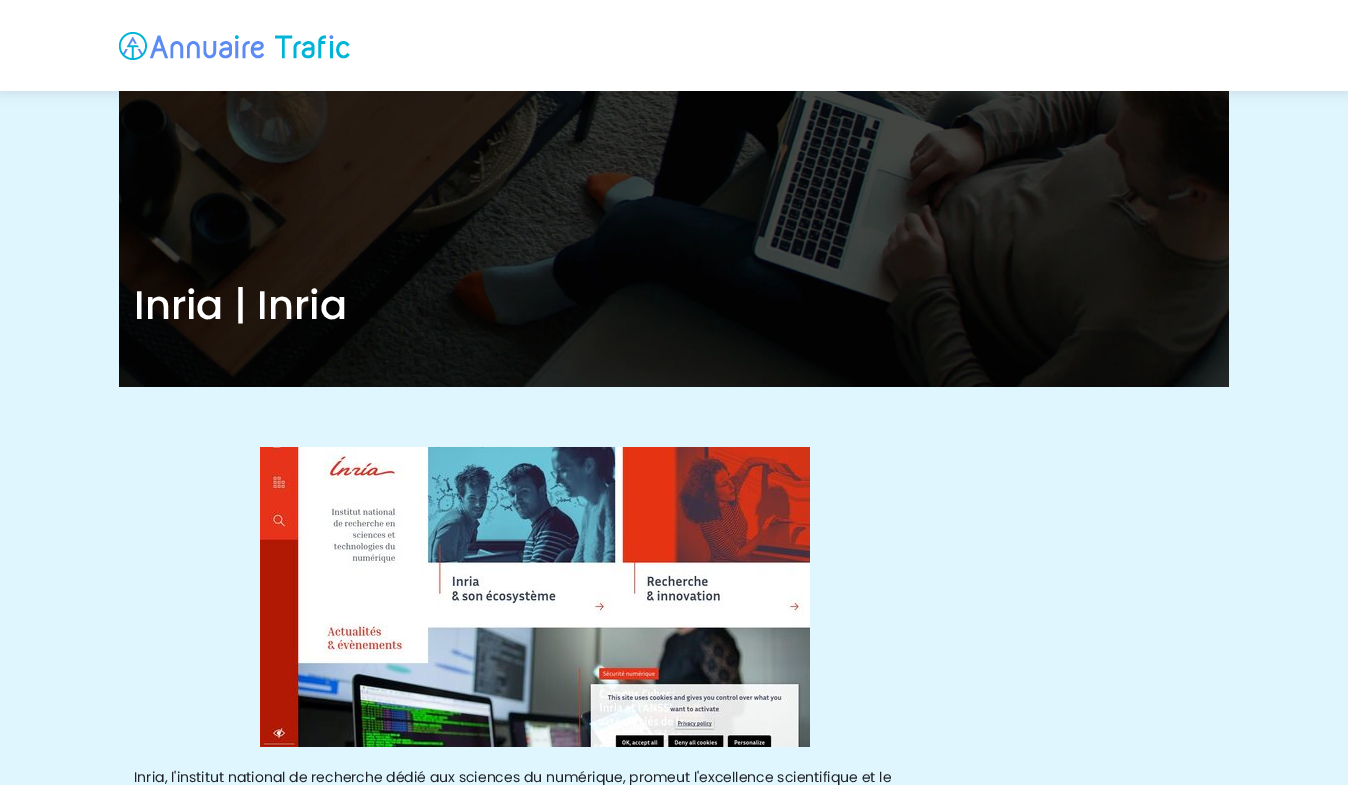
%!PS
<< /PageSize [1348 785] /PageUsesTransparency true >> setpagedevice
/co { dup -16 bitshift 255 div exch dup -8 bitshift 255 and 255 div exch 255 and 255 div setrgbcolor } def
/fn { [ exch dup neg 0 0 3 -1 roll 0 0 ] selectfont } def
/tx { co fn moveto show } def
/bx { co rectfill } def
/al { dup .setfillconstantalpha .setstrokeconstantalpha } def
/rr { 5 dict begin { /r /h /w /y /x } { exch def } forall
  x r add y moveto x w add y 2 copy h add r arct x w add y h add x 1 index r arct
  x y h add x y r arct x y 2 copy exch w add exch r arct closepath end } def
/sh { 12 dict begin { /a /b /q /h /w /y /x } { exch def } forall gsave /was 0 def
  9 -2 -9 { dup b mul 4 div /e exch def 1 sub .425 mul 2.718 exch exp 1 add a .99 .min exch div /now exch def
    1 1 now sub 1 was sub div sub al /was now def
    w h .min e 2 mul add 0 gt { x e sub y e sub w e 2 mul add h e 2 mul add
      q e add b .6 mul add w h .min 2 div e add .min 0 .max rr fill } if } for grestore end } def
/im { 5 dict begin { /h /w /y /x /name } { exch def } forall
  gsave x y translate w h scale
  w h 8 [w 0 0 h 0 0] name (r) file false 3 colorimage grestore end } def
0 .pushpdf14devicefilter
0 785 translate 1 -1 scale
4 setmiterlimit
0 0 1348 785 16#DFF6FF bx
16#000000 co
0 2 1348 91 0 6.5 .1 sh
0 0 1348 91 16#FFFFFF bx
(media/1.raw) 119 32 231 28 im
(media/2.raw) 119 91 1110 296 im
(media/3.raw) 260 447 550 300 im
(Inria | Inria) 134 319 /Poppins-Medium 40 16#FFFFFF tx
(Inria, l'institut national de recherche dédié aux sciences du numérique, promeut l'excellence scientifique et le) 134 782 /Poppins-Regular 14 16#212529 tx
.poppdf14devicefilter showpage
